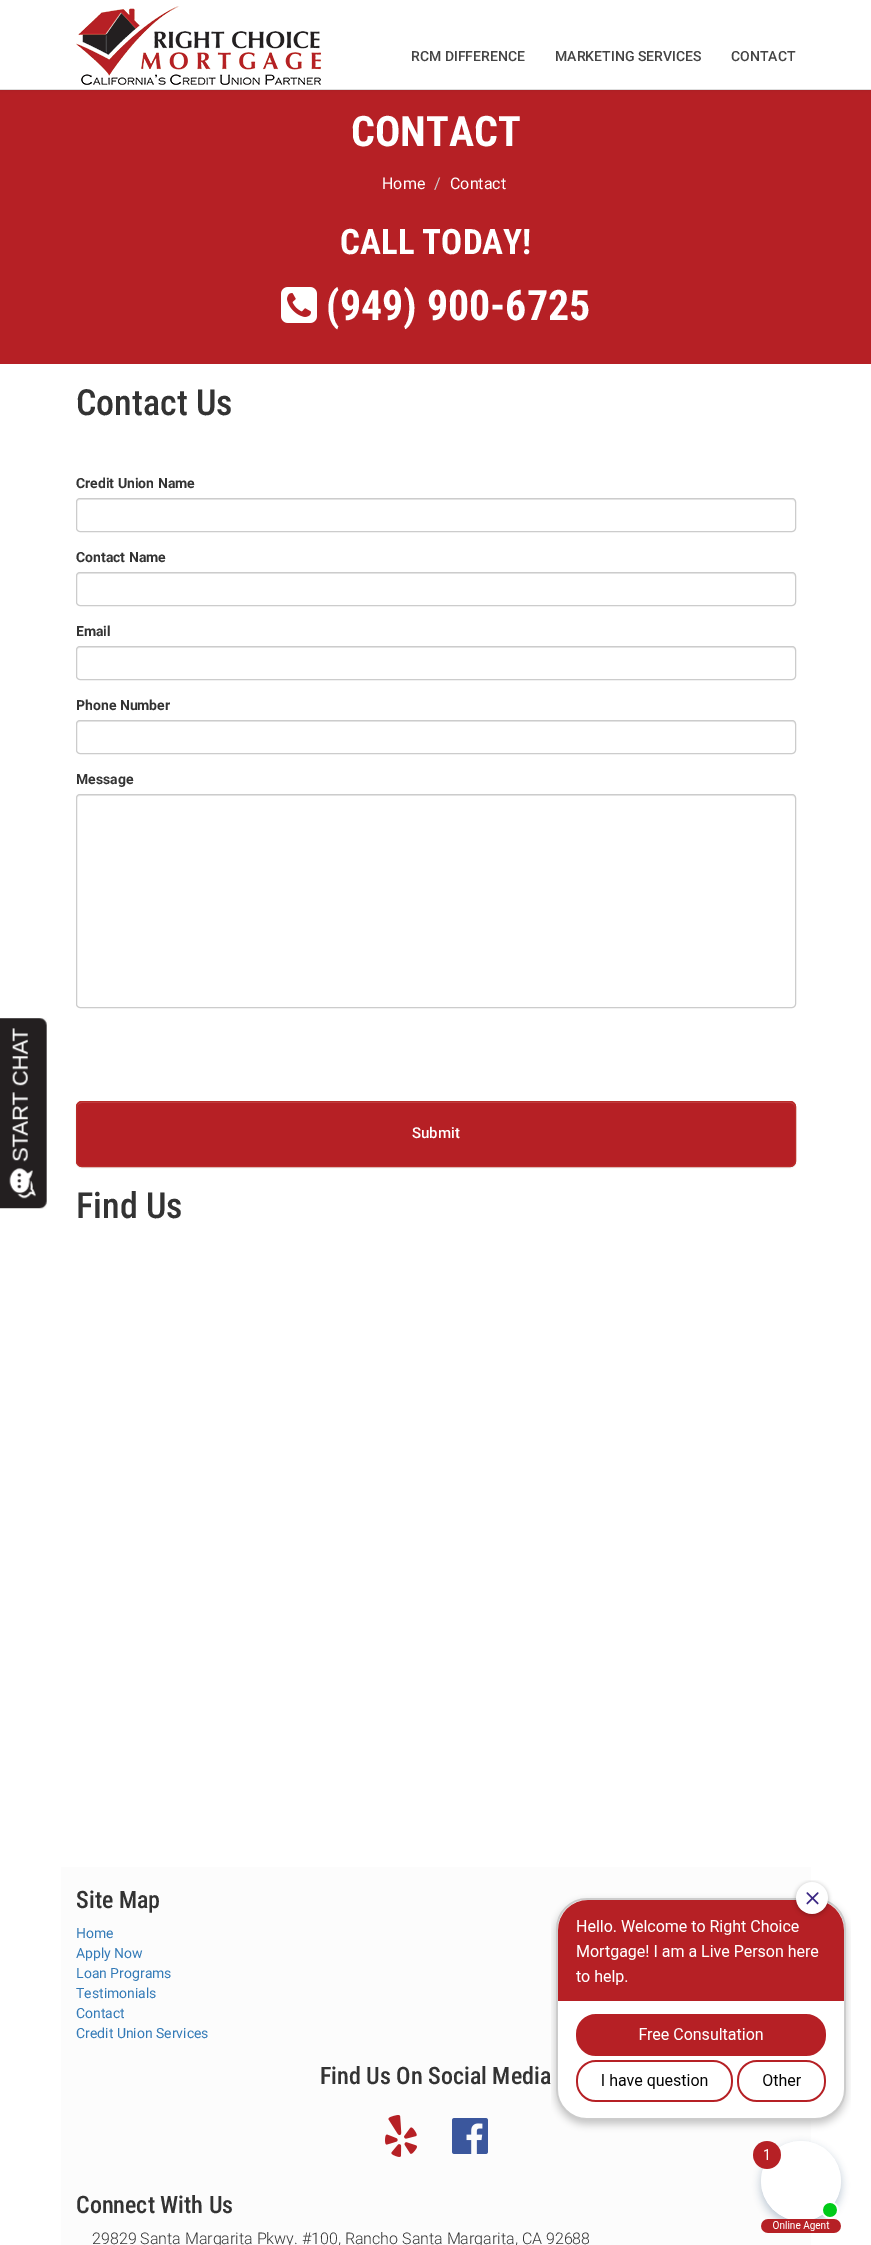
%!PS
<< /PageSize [871 2245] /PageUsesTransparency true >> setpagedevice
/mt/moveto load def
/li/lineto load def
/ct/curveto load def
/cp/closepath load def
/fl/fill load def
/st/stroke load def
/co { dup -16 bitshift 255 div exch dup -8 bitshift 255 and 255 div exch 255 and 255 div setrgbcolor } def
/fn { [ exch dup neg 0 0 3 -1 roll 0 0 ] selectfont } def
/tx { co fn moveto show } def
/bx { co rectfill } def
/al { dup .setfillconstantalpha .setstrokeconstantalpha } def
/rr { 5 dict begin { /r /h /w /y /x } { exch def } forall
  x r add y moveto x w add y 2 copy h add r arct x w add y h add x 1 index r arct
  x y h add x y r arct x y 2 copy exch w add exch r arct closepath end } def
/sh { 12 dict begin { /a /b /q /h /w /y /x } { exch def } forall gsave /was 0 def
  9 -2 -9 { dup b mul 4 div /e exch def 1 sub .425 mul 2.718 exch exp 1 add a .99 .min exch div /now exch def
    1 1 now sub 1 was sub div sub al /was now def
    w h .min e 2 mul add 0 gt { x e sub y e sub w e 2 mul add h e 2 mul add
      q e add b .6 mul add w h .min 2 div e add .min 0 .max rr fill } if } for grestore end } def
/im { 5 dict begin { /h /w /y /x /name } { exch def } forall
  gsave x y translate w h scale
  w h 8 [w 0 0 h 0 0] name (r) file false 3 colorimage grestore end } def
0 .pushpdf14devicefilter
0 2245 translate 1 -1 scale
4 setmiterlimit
0 0 871 2245 16#FFFFFF bx
0 90 871 274 16#B62025 bx
16#000000 co
0 0 871 90 0 1.5 .1 sh
0 0 871 89 16#FFFFFF bx
0 89 871 1 16#DEDEDE bx
(media/1.raw) 76 6 245 79 im
(media/2.raw) 281 287 36 36 im
(media/3.raw) 0 1018 47 191 im
16#ECECEC co
80 500 mt 792 500 li 794 500 795 501 795 503 ct 795 501 794 499 792 499 ct 80 499 li 78 499 77 501 77 503 ct 77 501 78 500 80 500 ct cp fl
16#CCCCCC co
76.5 498.5 719 33 3.5 rr st
16#ECECEC co
80 574 mt 792 574 li 794 574 795 575 795 577 ct 795 575 794 573 792 573 ct 80 573 li 78 573 77 575 77 577 ct 77 575 78 574 80 574 ct cp fl
16#CCCCCC co
76.5 572.5 719 33 3.5 rr st
16#ECECEC co
80 648 mt 792 648 li 794 648 795 649 795 651 ct 795 649 794 647 792 647 ct 80 647 li 78 647 77 649 77 651 ct 77 649 78 648 80 648 ct cp fl
16#CCCCCC co
76.5 646.5 719 33 3.5 rr st
16#ECECEC co
80 722 mt 792 722 li 794 722 795 723 795 725 ct 795 723 794 721 792 721 ct 80 721 li 78 721 77 723 77 725 ct 77 723 78 722 80 722 ct cp fl
16#CCCCCC co
76.5 720.5 719 33 3.5 rr st
16#ECECEC co
80 796 mt 792 796 li 794 796 795 797 795 799 ct 795 797 794 795 792 795 ct 80 795 li 78 795 77 797 77 799 ct 77 797 78 796 80 796 ct cp fl
16#CCCCCC co
76.5 794.5 719 213 3.5 rr st
16#000000 co
76 1102 720 66 6 .5 .07 sh
16#B62025 co
76 1101 720 66 6 rr fl
16#C14146 co
82 1103 mt 790 1103 li 793 1103 795 1105 795 1108 ct 795 1105 793 1102 790 1102 ct 82 1102 li 79 1102 77 1105 77 1108 ct 77 1105 79 1103 82 1103 ct cp fl
16#B92C28 co
76.5 1101.5 719 65 5.5 rr st
61 1867 750 378 16#FCFCFC bx
(media/4.raw) 385 2115 32 42 im
(media/5.raw) 452 2118 36 36 im
(RCM DIFFERENCE) 411 61 /Roboto-Medium 14 16#444444 tx
(MARKETING SERVICES) 555 61 /Roboto-Medium 14 16#444444 tx
(CONTACT) 731 61 /Roboto-Medium 14 16#444444 tx
(CONTACT) 351 146 /RobotoCondensed-Bold 42 16#FFFFFF tx
(Home) 382 189 /Roboto-Regular 16 16#FFFFFF tx
(/) 434 189 /Roboto-Regular 16 16#CCCCCC tx
(Contact) 450 189 /Roboto-Regular 16 16#FFFFFF tx
(CALL TODAY!) 340 254 /RobotoCondensed-Bold 35 16#FFFFFF tx
(\(949\) 900-6725) 326 320 /RobotoCondensed-Bold 42 16#FFFFFF tx
(Contact Us) 76 415 /RobotoCondensed-Medium 36 16#333333 tx
(Credit Union Name) 76 488 /Roboto-Bold 14 16#333333 tx
(Contact Name) 76 562 /Roboto-Bold 14 16#333333 tx
(Email) 76 636 /Roboto-Bold 14 16#333333 tx
(Phone Number) 76 710 /Roboto-Bold 14 16#333333 tx
(Message) 76 784 /Roboto-Bold 14 16#333333 tx
(Submit) 412 1138 /Roboto-Medium 15 16#FFFFFF tx
(Find Us) 76 1218 /RobotoCondensed-Medium 36 16#333333 tx
(Site Map) 76 1908 /RobotoCondensed-Medium 24 16#333333 tx
(Home) 76 1938 /Roboto-Regular 14 16#337AB7 tx
(Apply Now) 76 1958 /Roboto-Regular 14 16#337AB7 tx
(Loan Programs) 76 1978 /Roboto-Regular 14 16#337AB7 tx
(Testimonials) 76 1998 /Roboto-Regular 14 16#337AB7 tx
(Contact) 76 2018 /Roboto-Regular 14 16#337AB7 tx
(Credit Union Services) 76 2038 /Roboto-Regular 14 16#337AB7 tx
(Find Us On Social Media) 320 2084 /RobotoCondensed-Medium 24 16#333333 tx
(Connect With Us) 76 2213 /RobotoCondensed-Medium 24 16#333333 tx
(29829 Santa Margarita Pkwy. #100, Rancho Santa Margarita, CA 92688) 92 2244 /Roboto-Light 16 16#333333 tx
(media/6.raw) 551 1880 300 353 im
.poppdf14devicefilter showpage
